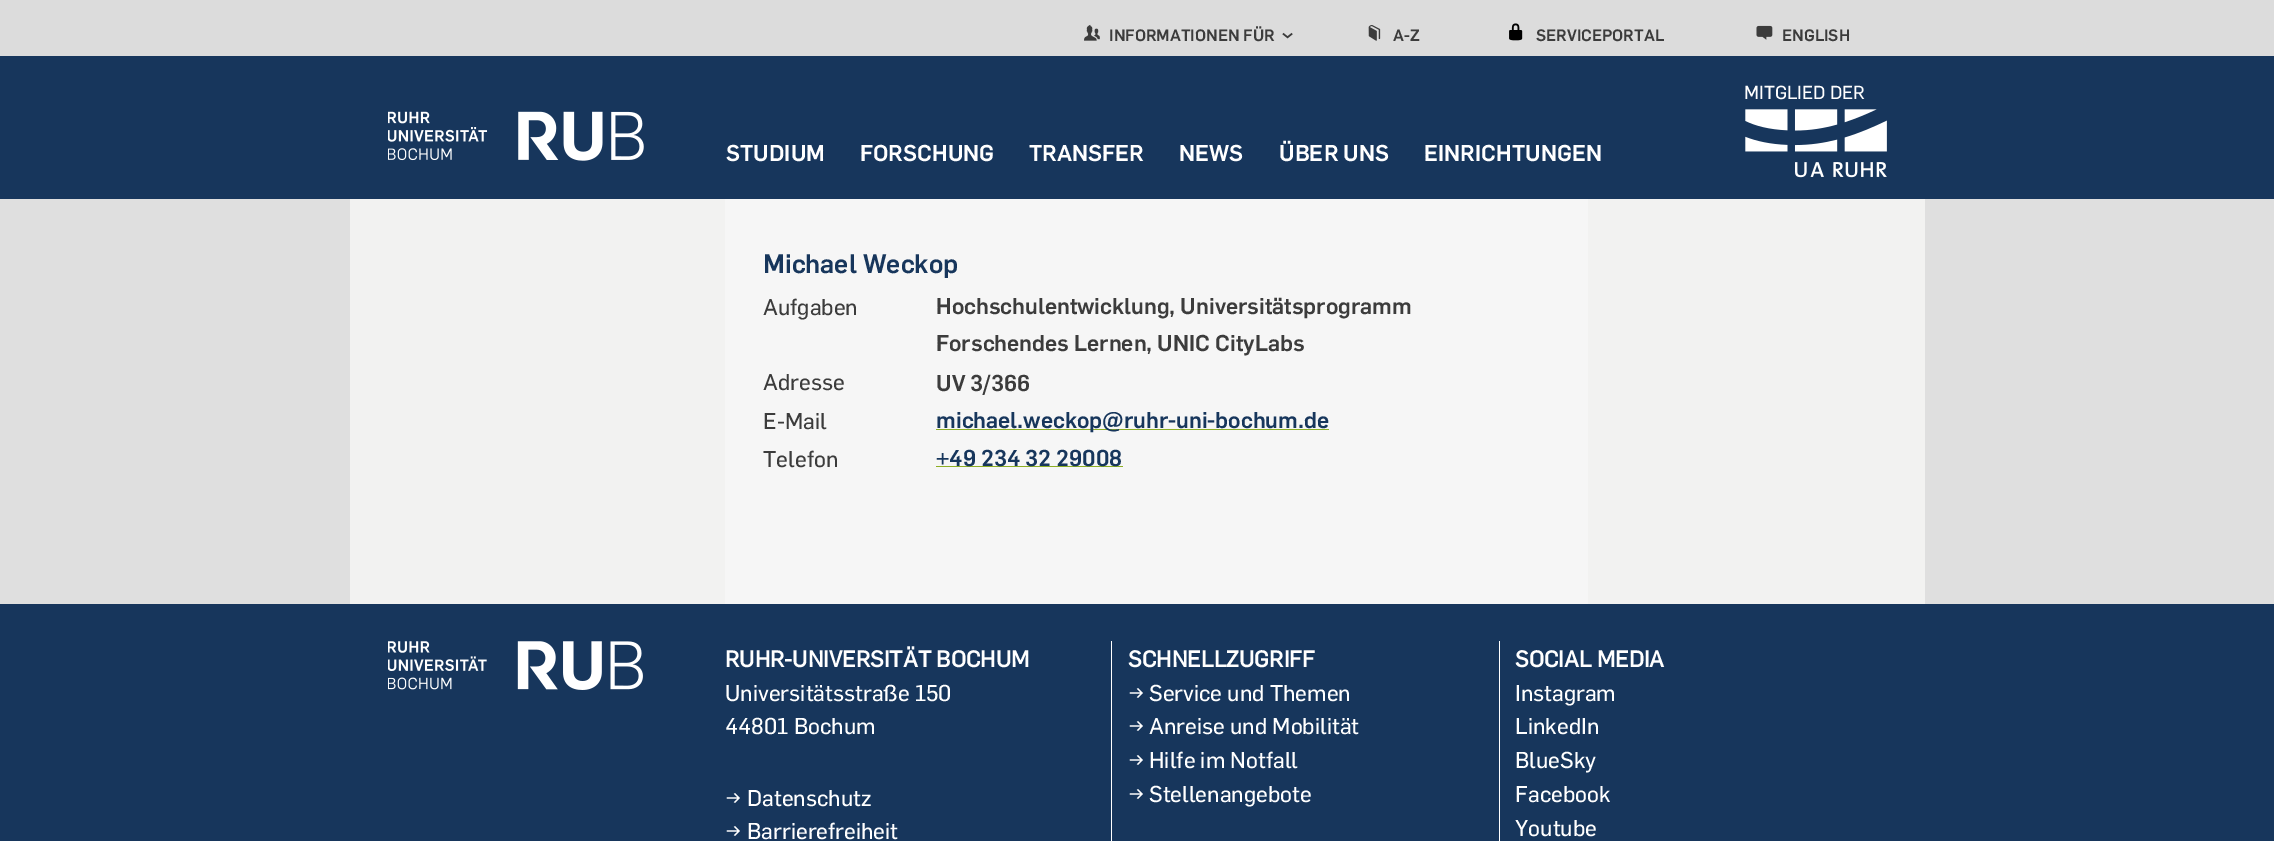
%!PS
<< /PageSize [2274 841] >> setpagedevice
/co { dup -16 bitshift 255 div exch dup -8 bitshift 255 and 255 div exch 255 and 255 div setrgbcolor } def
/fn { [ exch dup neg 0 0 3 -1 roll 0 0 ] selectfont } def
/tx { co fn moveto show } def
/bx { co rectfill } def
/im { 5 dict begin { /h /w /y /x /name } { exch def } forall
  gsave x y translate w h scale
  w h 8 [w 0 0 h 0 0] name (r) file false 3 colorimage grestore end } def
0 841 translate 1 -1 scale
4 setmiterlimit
0 0 2274 841 16#DFDFDF bx
0 0 2274 56 16#DCDCDC bx
(media/1.raw) 1084 24 16 17 im
(media/2.raw) 1282 32 11 7 im
(media/3.raw) 1368 25 13 16 im
(media/4.raw) 1509 23 14 18 im
(media/5.raw) 1756 25 17 15 im
0 56 2274 143 16#17365C bx
(media/6.raw) 1745 109 142 69 im
(media/7.raw) 388 111 256 50 im
350 199 375 405 16#F2F2F1 bx
725 199 863 405 16#F6F6F6 bx
936 429 393 1 16#8DAE25 bx
936 466 187 1 16#8DAE25 bx
1588 199 337 405 16#F2F2F1 bx
0 604 2274 237 16#17365C bx
(media/8.raw) 388 641 255 49 im
1111 641 1 200 16#FFFFFF bx
1499 641 1 200 16#FFFFFF bx
(INFORMATIONEN FÜR) 1109 41 /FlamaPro-Medium 16.25 16#3C3C3C tx
(A-Z) 1393 41 /FlamaPro-Medium 16.25 16#3C3C3C tx
(SERVICEPORTAL) 1536 41 /FlamaPro-Medium 16.25 16#3C3C3C tx
(ENGLISH) 1782 41 /FlamaPro-Medium 16.25 16#3C3C3C tx
(MITGLIED DER) 1744 99 /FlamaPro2-Medium 18.5 16#FFFFFF tx
(STUDIUM) 726 161 /FlamaPro-Medium 22.5 16#FFFFFF tx
(FORSCHUNG) 860 161 /FlamaPro-Medium 22.5 16#FFFFFF tx
(TRANSFER) 1029 161 /FlamaPro-Medium 22.5 16#FFFFFF tx
(NEWS) 1179 161 /FlamaPro-Medium 22.5 16#FFFFFF tx
(ÜBER UNS) 1279 161 /FlamaPro-Medium 22.5 16#FFFFFF tx
(EINRICHTUNGEN) 1424 161 /FlamaPro-Medium 22.5 16#FFFFFF tx
(Michael Weckop) 763 273 /FlamaPro-Medium 26.25 16#17365C tx
(Aufgaben) 763 315 /FlamaPro2-Medium 22.5 16#3C3C3C tx
(Hochschulentwicklung, Universitätsprogramm) 936 314 /FlamaPro-Medium 22.5 16#3C3C3C tx
(Forschendes Lernen, UNIC CityLabs) 936 351 /FlamaPro-Medium 22.5 16#3C3C3C tx
(Adresse) 763 390 /FlamaPro2-Medium 22.5 16#3C3C3C tx
(UV 3/366) 936 391 /FlamaPro-Medium 22.5 16#3C3C3C tx
(E-Mail) 763 429 /FlamaPro2-Medium 22.5 16#3C3C3C tx
(michael.weckop@ruhr-uni-bochum.de) 936 428 /FlamaPro-Medium 22.5 16#17365C tx
(Telefon) 763 467 /FlamaPro2-Medium 22.5 16#3C3C3C tx
(+49 234 32 29008) 936 466 /FlamaPro-Medium 22.5 16#17365C tx
(RUHR-UNIVERSITÄT BOCHUM) 725 667 /FlamaPro-Bold 22.5 16#FFFFFF tx
(Universitätsstraße 150) 725 701 /FlamaPro2-Medium 22.5 16#FFFFFF tx
(44801 Bochum) 725 734 /FlamaPro2-Medium 22.5 16#FFFFFF tx
(→) 725 806 /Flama-Medium 22.5 16#FFFFFF tx
(Datenschutz) 747 806 /FlamaPro2-Medium 22.5 16#FFFFFF tx
(→) 725 839 /Flama-Medium 22.5 16#FFFFFF tx
(Barrierefreiheit) 747 839 /FlamaPro2-Medium 22.5 16#FFFFFF tx
(SCHNELLZUGRIFF) 1128 667 /FlamaPro-Bold 22.5 16#FFFFFF tx
(→) 1128 701 /Flama-Medium 22.5 16#FFFFFF tx
(Service und Themen) 1149 701 /FlamaPro2-Medium 22.5 16#FFFFFF tx
(→) 1128 734 /Flama-Medium 22.5 16#FFFFFF tx
(Anreise und Mobilität) 1149 734 /FlamaPro2-Medium 22.5 16#FFFFFF tx
(→) 1128 768 /Flama-Medium 22.5 16#FFFFFF tx
(Hilfe im Notfall) 1149 768 /FlamaPro2-Medium 22.5 16#FFFFFF tx
(→) 1128 802 /Flama-Medium 22.5 16#FFFFFF tx
(Stellenangebote) 1149 802 /FlamaPro2-Medium 22.5 16#FFFFFF tx
(SOCIAL MEDIA) 1515 667 /FlamaPro-Bold 22.5 16#FFFFFF tx
(Instagram) 1515 701 /FlamaPro2-Medium 22.5 16#FFFFFF tx
(LinkedIn) 1515 734 /FlamaPro2-Medium 22.5 16#FFFFFF tx
(BlueSky) 1515 768 /FlamaPro2-Medium 22.5 16#FFFFFF tx
(Facebook) 1515 802 /FlamaPro2-Medium 22.5 16#FFFFFF tx
(Youtube) 1515 836 /FlamaPro2-Medium 22.5 16#FFFFFF tx
showpage
